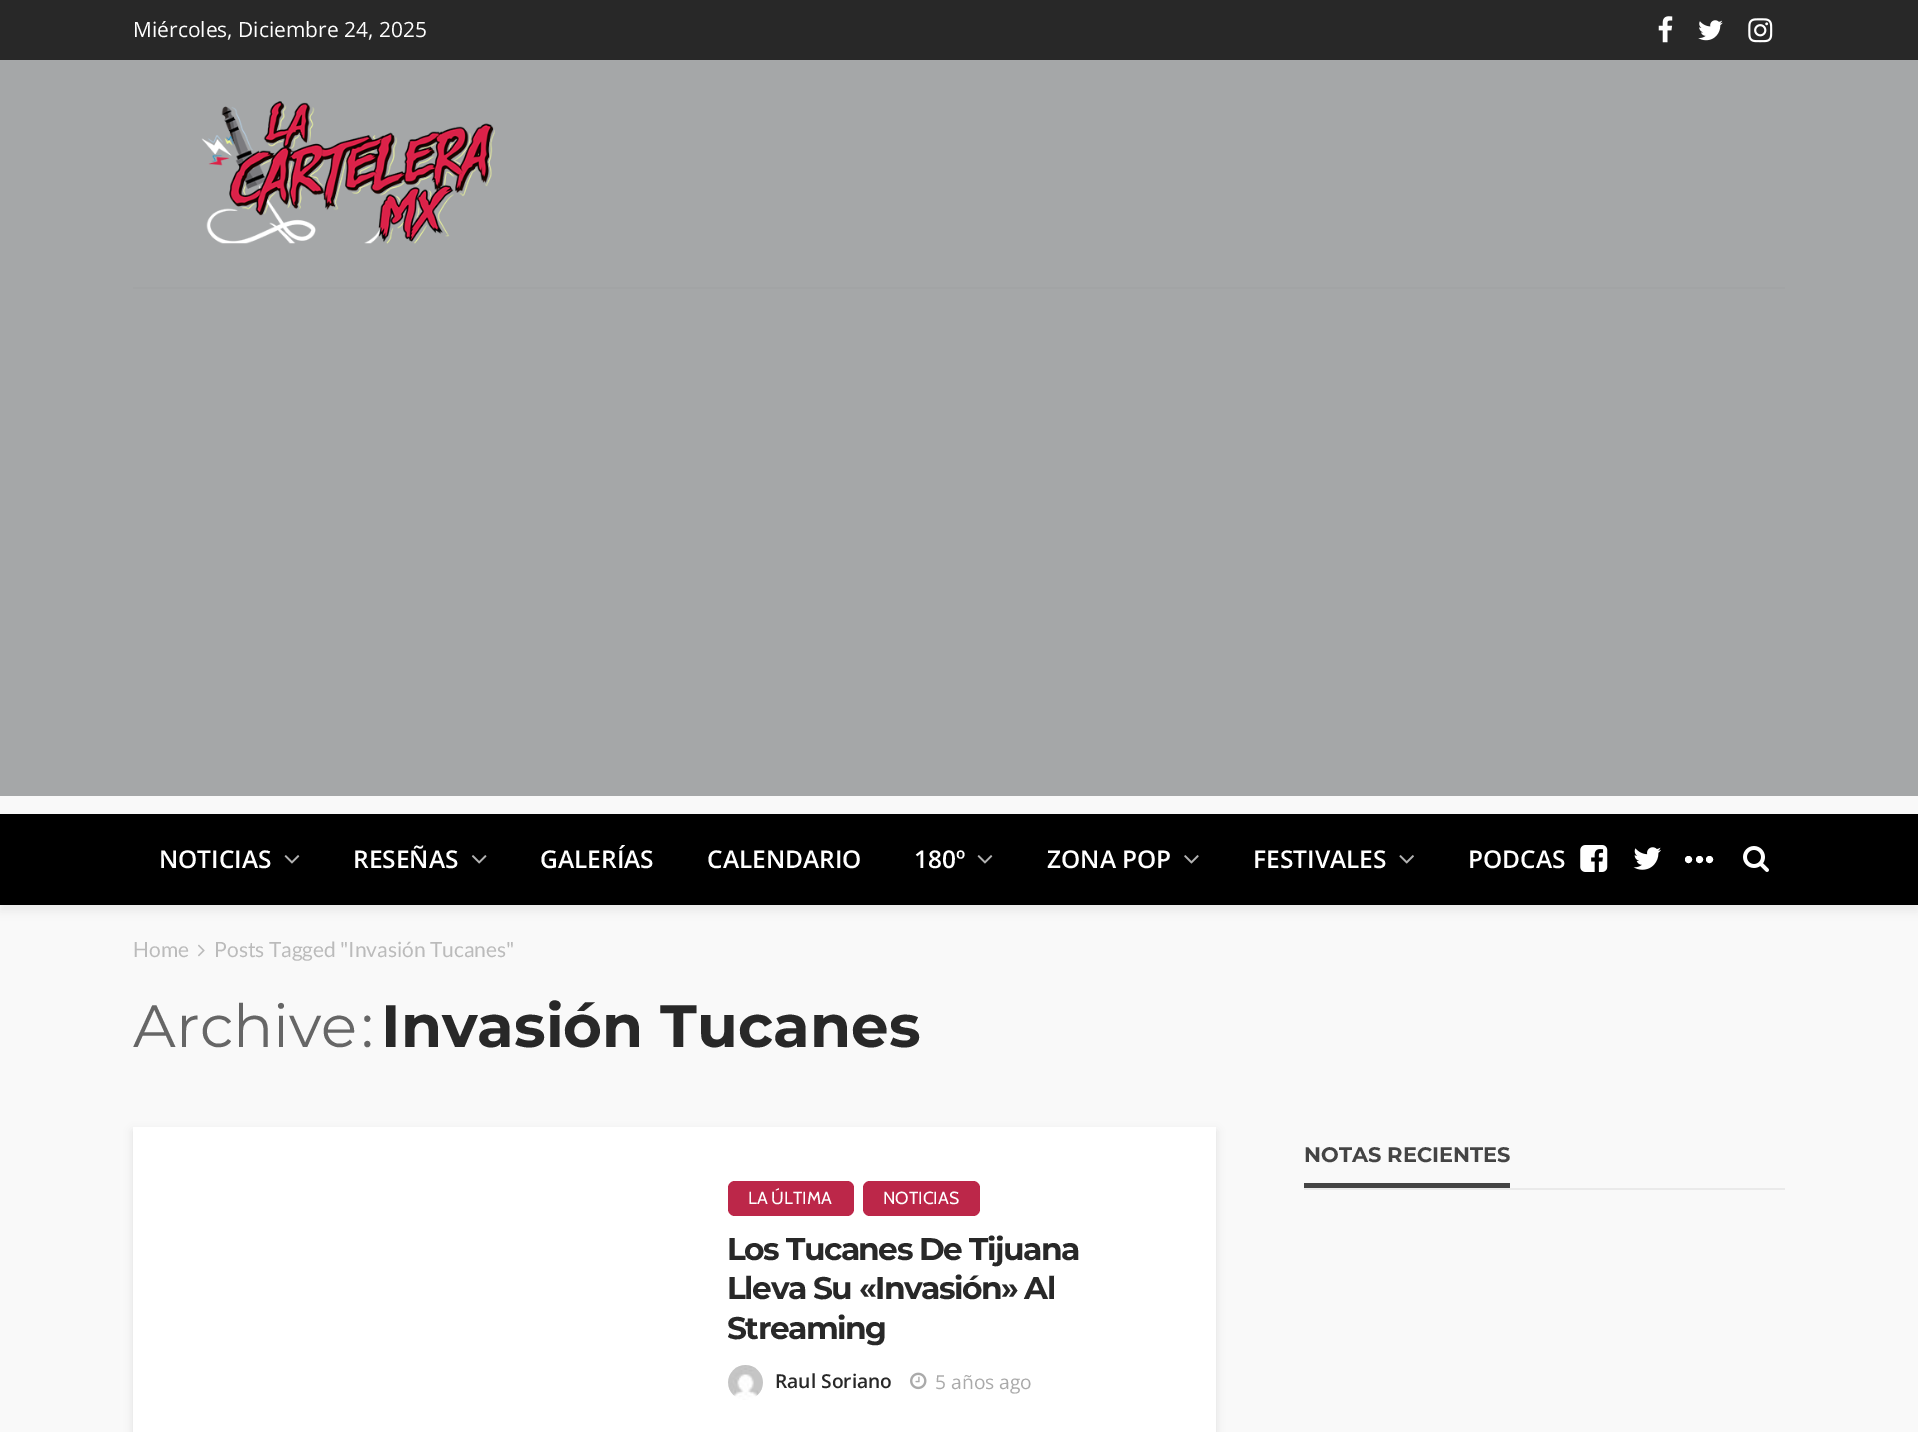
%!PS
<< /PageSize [1918 1432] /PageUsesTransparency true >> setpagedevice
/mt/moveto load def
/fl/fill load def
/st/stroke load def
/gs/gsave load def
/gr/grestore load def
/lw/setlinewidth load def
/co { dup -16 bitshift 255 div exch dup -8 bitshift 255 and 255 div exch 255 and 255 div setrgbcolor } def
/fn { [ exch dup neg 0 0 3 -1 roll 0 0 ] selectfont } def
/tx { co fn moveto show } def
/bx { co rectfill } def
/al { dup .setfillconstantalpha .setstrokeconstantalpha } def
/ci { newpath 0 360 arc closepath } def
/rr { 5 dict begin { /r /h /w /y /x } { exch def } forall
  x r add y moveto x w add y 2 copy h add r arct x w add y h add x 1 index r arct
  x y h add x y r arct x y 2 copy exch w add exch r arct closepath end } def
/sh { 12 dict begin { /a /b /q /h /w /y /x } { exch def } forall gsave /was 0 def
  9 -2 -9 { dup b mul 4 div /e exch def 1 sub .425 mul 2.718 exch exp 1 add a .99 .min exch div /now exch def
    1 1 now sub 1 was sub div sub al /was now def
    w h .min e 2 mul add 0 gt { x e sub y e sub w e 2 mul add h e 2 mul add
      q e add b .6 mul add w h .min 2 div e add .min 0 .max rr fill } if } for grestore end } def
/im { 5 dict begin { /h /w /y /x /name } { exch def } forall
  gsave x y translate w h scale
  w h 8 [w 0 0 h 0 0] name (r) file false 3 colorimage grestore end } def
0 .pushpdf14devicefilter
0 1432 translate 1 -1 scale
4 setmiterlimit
0 0 1918 1432 16#F9F9F9 bx
0 0 1918 60 16#282828 bx
(media/1.raw) 1658 16 15 27 im
(media/2.raw) 1698 20 25 21 im
(media/3.raw) 1748 18 25 25 im
0 60 1918 736 16#A5A7A8 bx
133 287 1652 2 16#A2A4A5 bx
(media/4.raw) 201 101 294 143 im
16#1C1C1C co
0 821 1918 91 0 5 .05 sh
0 814 1918 91 16#000000 bx
(media/5.raw) 284 855 16 9 im
(media/6.raw) 471 855 16 9 im
(media/5.raw) 977 855 16 9 im
(media/7.raw) 1184 855 15 9 im
(media/8.raw) 1399 855 15 9 im
(media/9.raw) 1580 845 28 27 im
(media/10.raw) 1633 847 28 23 im
16#FFFFFF co
1699.5 859.5 2.5 ci gs fl gr
2 lw
st
1688.5 859.5 2.5 ci gs fl gr
st
1709.5 859.5 2.5 ci gs fl gr
st
(media/11.raw) 1743 846 26 26 im
(media/12.raw) 198 944 7 13 im
1304 1188 481 2 16#EAEAEA bx
1304 1183 206 5 16#444444 bx
16#000000 co
133 1131 1083 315 0 4.5 .1 sh
133 1127 1083 305 16#FFFFFF bx
16#BC2749 co
728 1181 126 35 7 rr fl
863 1181 117 35 7 rr fl
(media/13.raw) 728 1365 35 35 im
(media/14.raw) 910 1372 17 18 im
(Miércoles, Diciembre 24, 2025) 133 37 /OpenSans-Regular 21 16#FFFFFF tx
(NOTICIAS) 159 868 /OpenSans-SemiBold 24.5 16#FFFFFF tx
(RESEÑAS) 353 868 /OpenSans-SemiBold 24.5 16#FFFFFF tx
(GALERÍAS) 540 868 /OpenSans-SemiBold 24.5 16#FFFFFF tx
(CALENDARIO) 707 868 /OpenSans-SemiBold 24.5 16#FFFFFF tx
(180º) 914 868 /OpenSans-SemiBold 24.5 16#FFFFFF tx
(ZONA POP) 1047 868 /OpenSans-SemiBold 24.5 16#FFFFFF tx
(FESTIVALES) 1253 868 /OpenSans-SemiBold 24.5 16#FFFFFF tx
(PODCAS) 1468 868 /OpenSans-SemiBold 24.5 16#FFFFFF tx
(Home) 133 957 /Lato-Regular 21 16#BBBBBB tx
(Posts Tagged "Invasión Tucanes") 214 957 /Lato-Regular 21 16#BBBBBB tx
(Archive) 133 1047 /Montserrat-Regular 59.5 16#666666 tx
(:) 361 1047 /Montserrat-Regular 59.5 16#666666 tx
(Invasión Tucanes) 381 1047 /Montserrat-Bold 59.5 16#282828 tx
(NOTAS RECIENTES) 1304 1162 /Montserrat-Bold 21 16#444444 tx
(LA ÚLTIMA) 748 1204 /Cabin-Regular 17.5 16#FFFFFF tx
(NOTICIAS) 883 1204 /Cabin-Regular 17.5 16#FFFFFF tx
/Montserrat-Bold 31.25 fn
16#282828 co
727 1260 mt -1.5 0 (Los Tucanes De Tijuana) ashow
727 1299 mt -1.5 0 (Lleva Su «Invasión» Al) ashow
727 1339 mt -1.5 0 (Streaming) ashow
(Raul Soriano) 775 1388 /OpenSans-SemiBold 19.25 16#282828 tx
(5 años ago) 935 1389 /OpenSans-Regular 19.25 16#AAAAAA tx
.poppdf14devicefilter showpage
